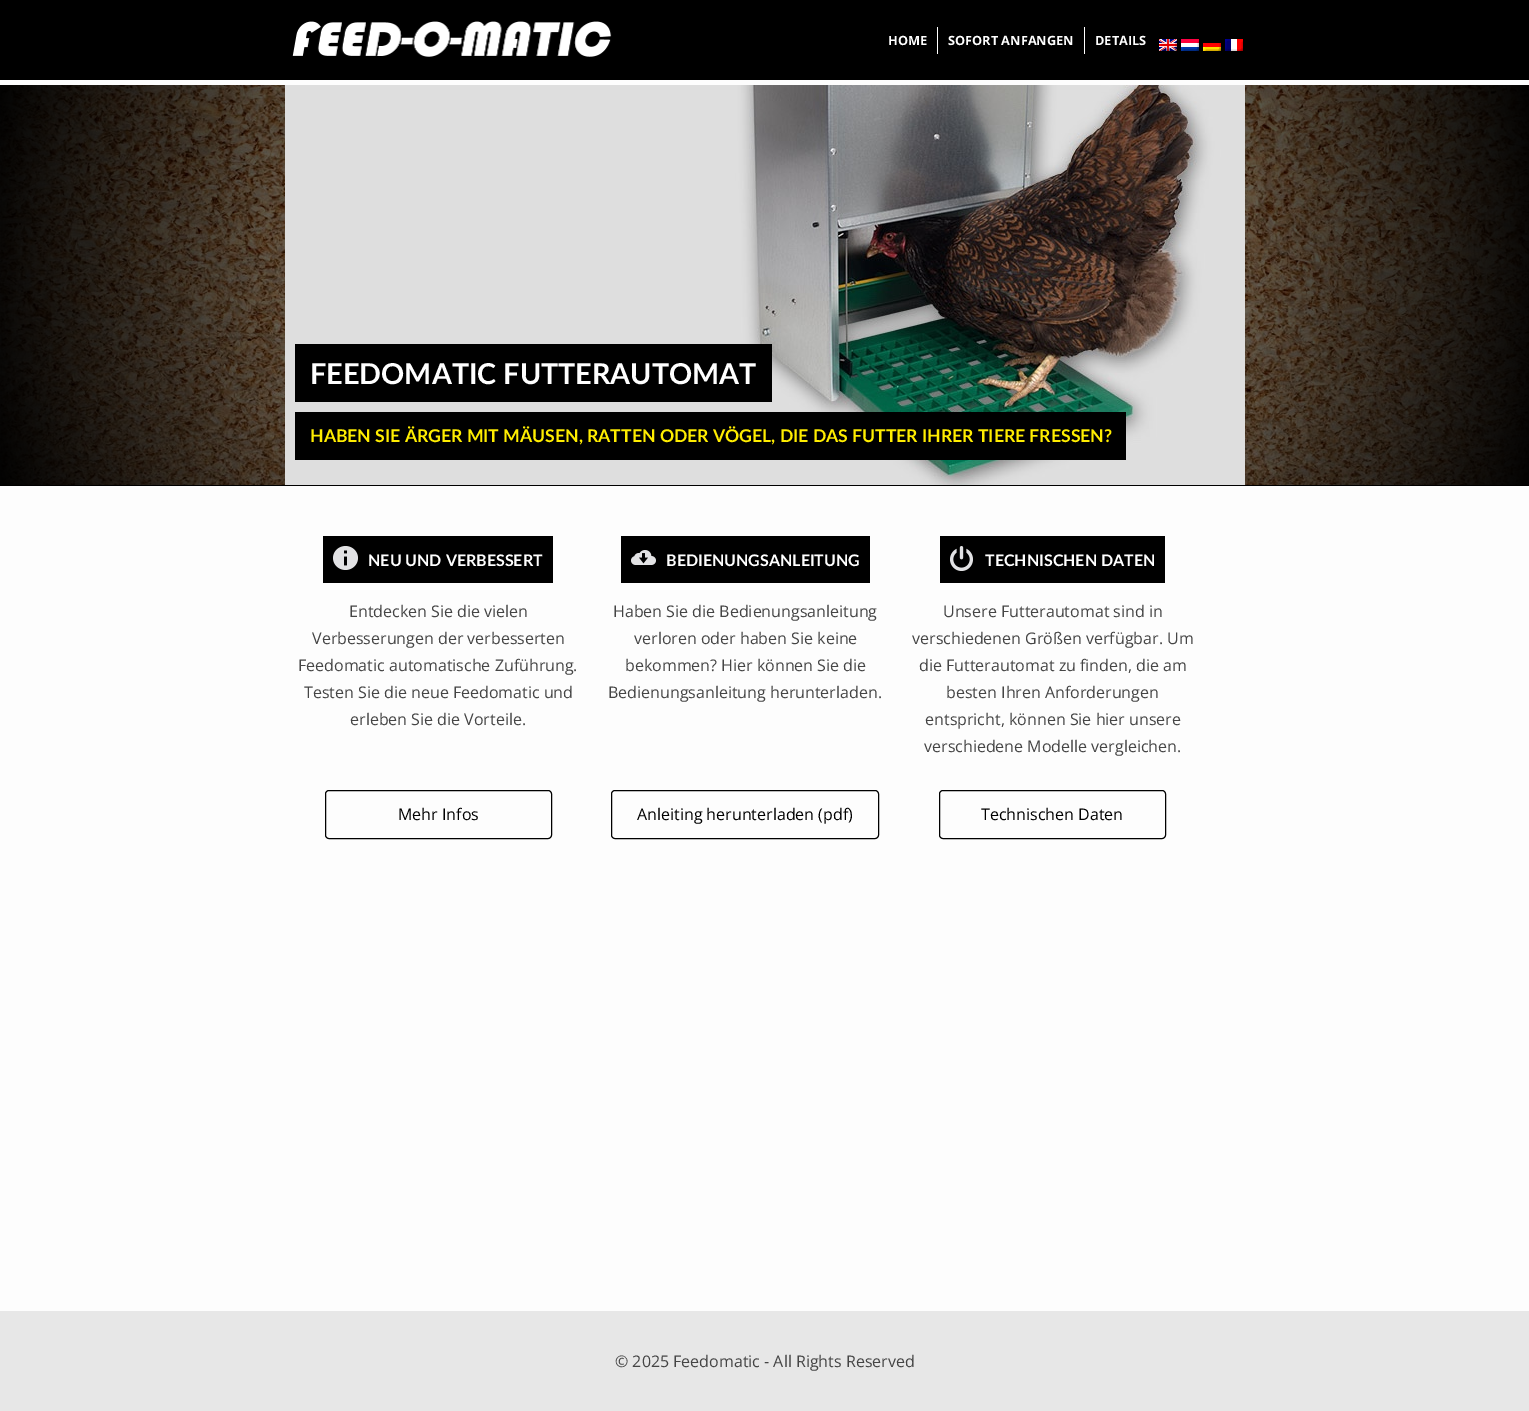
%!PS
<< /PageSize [1529 1411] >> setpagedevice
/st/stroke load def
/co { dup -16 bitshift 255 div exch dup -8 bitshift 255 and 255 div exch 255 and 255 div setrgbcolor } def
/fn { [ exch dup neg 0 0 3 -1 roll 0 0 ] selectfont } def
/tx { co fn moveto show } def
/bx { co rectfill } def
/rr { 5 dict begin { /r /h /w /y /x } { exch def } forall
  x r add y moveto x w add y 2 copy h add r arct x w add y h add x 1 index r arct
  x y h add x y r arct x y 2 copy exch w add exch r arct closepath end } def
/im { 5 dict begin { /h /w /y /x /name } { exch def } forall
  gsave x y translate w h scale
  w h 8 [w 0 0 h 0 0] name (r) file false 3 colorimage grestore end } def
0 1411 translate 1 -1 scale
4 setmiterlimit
0 0 1529 1411 16#FDFDFD bx
0 0 1529 80 16#000000 bx
(media/1.raw) 292 21 320 36 im
937 27 1 27 16#FFFFFF bx
1084 27 1 27 16#FFFFFF bx
(media/2.raw) 1159 39 18 12 im
(media/3.raw) 1181 39 18 12 im
(media/4.raw) 1203 43 18 8 im
(media/5.raw) 1225 39 18 12 im
(media/6.raw) 0 85 1529 400 im
0 485 1529 1 16#000000 bx
(media/7.raw) 285 85 960 400 im
295 344 477 58 16#000000 bx
295 412 831 48 16#000000 bx
323 536 230 47 16#000000 bx
(media/8.raw) 333 546 25 24 im
325.5 790.5 226 48 3.5 rr st
621 536 249 47 16#000000 bx
(media/9.raw) 631 550 25 15 im
611.5 790.5 267 48 3.5 rr st
940 536 225 47 16#000000 bx
(media/10.raw) 950 546 23 25 im
939.5 790.5 226 48 3.5 rr st
0 1311 1529 100 16#E7E7E7 bx
(HOME) 888 45 /OpenSans-Bold 12.75 16#FFFFFF tx
(SOFORT ANFANGEN) 948 45 /OpenSans-Bold 12.75 16#FFFFFF tx
(DETAILS) 1095 45 /OpenSans-Bold 12.75 16#FFFFFF tx
(FEEDOMATIC FUTTERAUTOMAT) 310 384 /Lato-Bold 28.75 16#FFFFFF tx
(HABEN SIE ÄRGER MIT MÄUSEN, RATTEN ODER VÖGEL, DIE DAS FUTTER IHRER TIERE FRESSEN?) 310 442 /Lato-Bold 17.6 16#FFED00 tx
(NEU UND VERBESSERT) 368 566 /Lato-Bold 16 16#FFFFFF tx
(Entdecken Sie die vielen) 349 617 /OpenSans-Regular 16 16#454545 tx
(Verbesserungen der verbesserten) 312 644 /OpenSans-Regular 16 16#454545 tx
(Feedomatic automatische Zuführung.) 298 671 /OpenSans-Regular 16 16#454545 tx
(Testen Sie die neue Feedomatic und) 304 698 /OpenSans-Regular 16 16#454545 tx
(erleben Sie die Vorteile.) 350 725 /OpenSans-Regular 16 16#454545 tx
(Mehr Infos) 398 820 /OpenSans-Regular 16 16#000000 tx
(BEDIENUNGSANLEITUNG) 666 566 /Lato-Bold 16 16#FFFFFF tx
(Haben Sie die Bedienungsanleitung) 613 617 /OpenSans-Regular 16 16#454545 tx
(verloren oder haben Sie keine) 634 644 /OpenSans-Regular 16 16#454545 tx
(bekommen? Hier können Sie die) 625 671 /OpenSans-Regular 16 16#454545 tx
(Bedienungsanleitung herunterladen.) 608 698 /OpenSans-Regular 16 16#454545 tx
(Anleiting herunterladen \(pdf\)) 637 820 /OpenSans-Regular 16 16#000000 tx
(TECHNISCHEN DATEN) 985 566 /Lato-Bold 16 16#FFFFFF tx
(Unsere Futterautomat sind in) 943 617 /OpenSans-Regular 16 16#454545 tx
(verschiedenen Größen verfügbar. Um) 912 644 /OpenSans-Regular 16 16#454545 tx
(die Futterautomat zu finden, die am) 919 671 /OpenSans-Regular 16 16#454545 tx
(besten Ihren Anforderungen) 946 698 /OpenSans-Regular 16 16#454545 tx
(entspricht, können Sie hier unsere) 925 725 /OpenSans-Regular 16 16#454545 tx
(verschiedene Modelle vergleichen.) 924 752 /OpenSans-Regular 16 16#454545 tx
(Technischen Daten) 981 820 /OpenSans-Regular 16 16#000000 tx
(© 2025 Feedomatic - All Rights Reserved) 615 1367 /OpenSans-Regular 16 16#454545 tx
showpage
